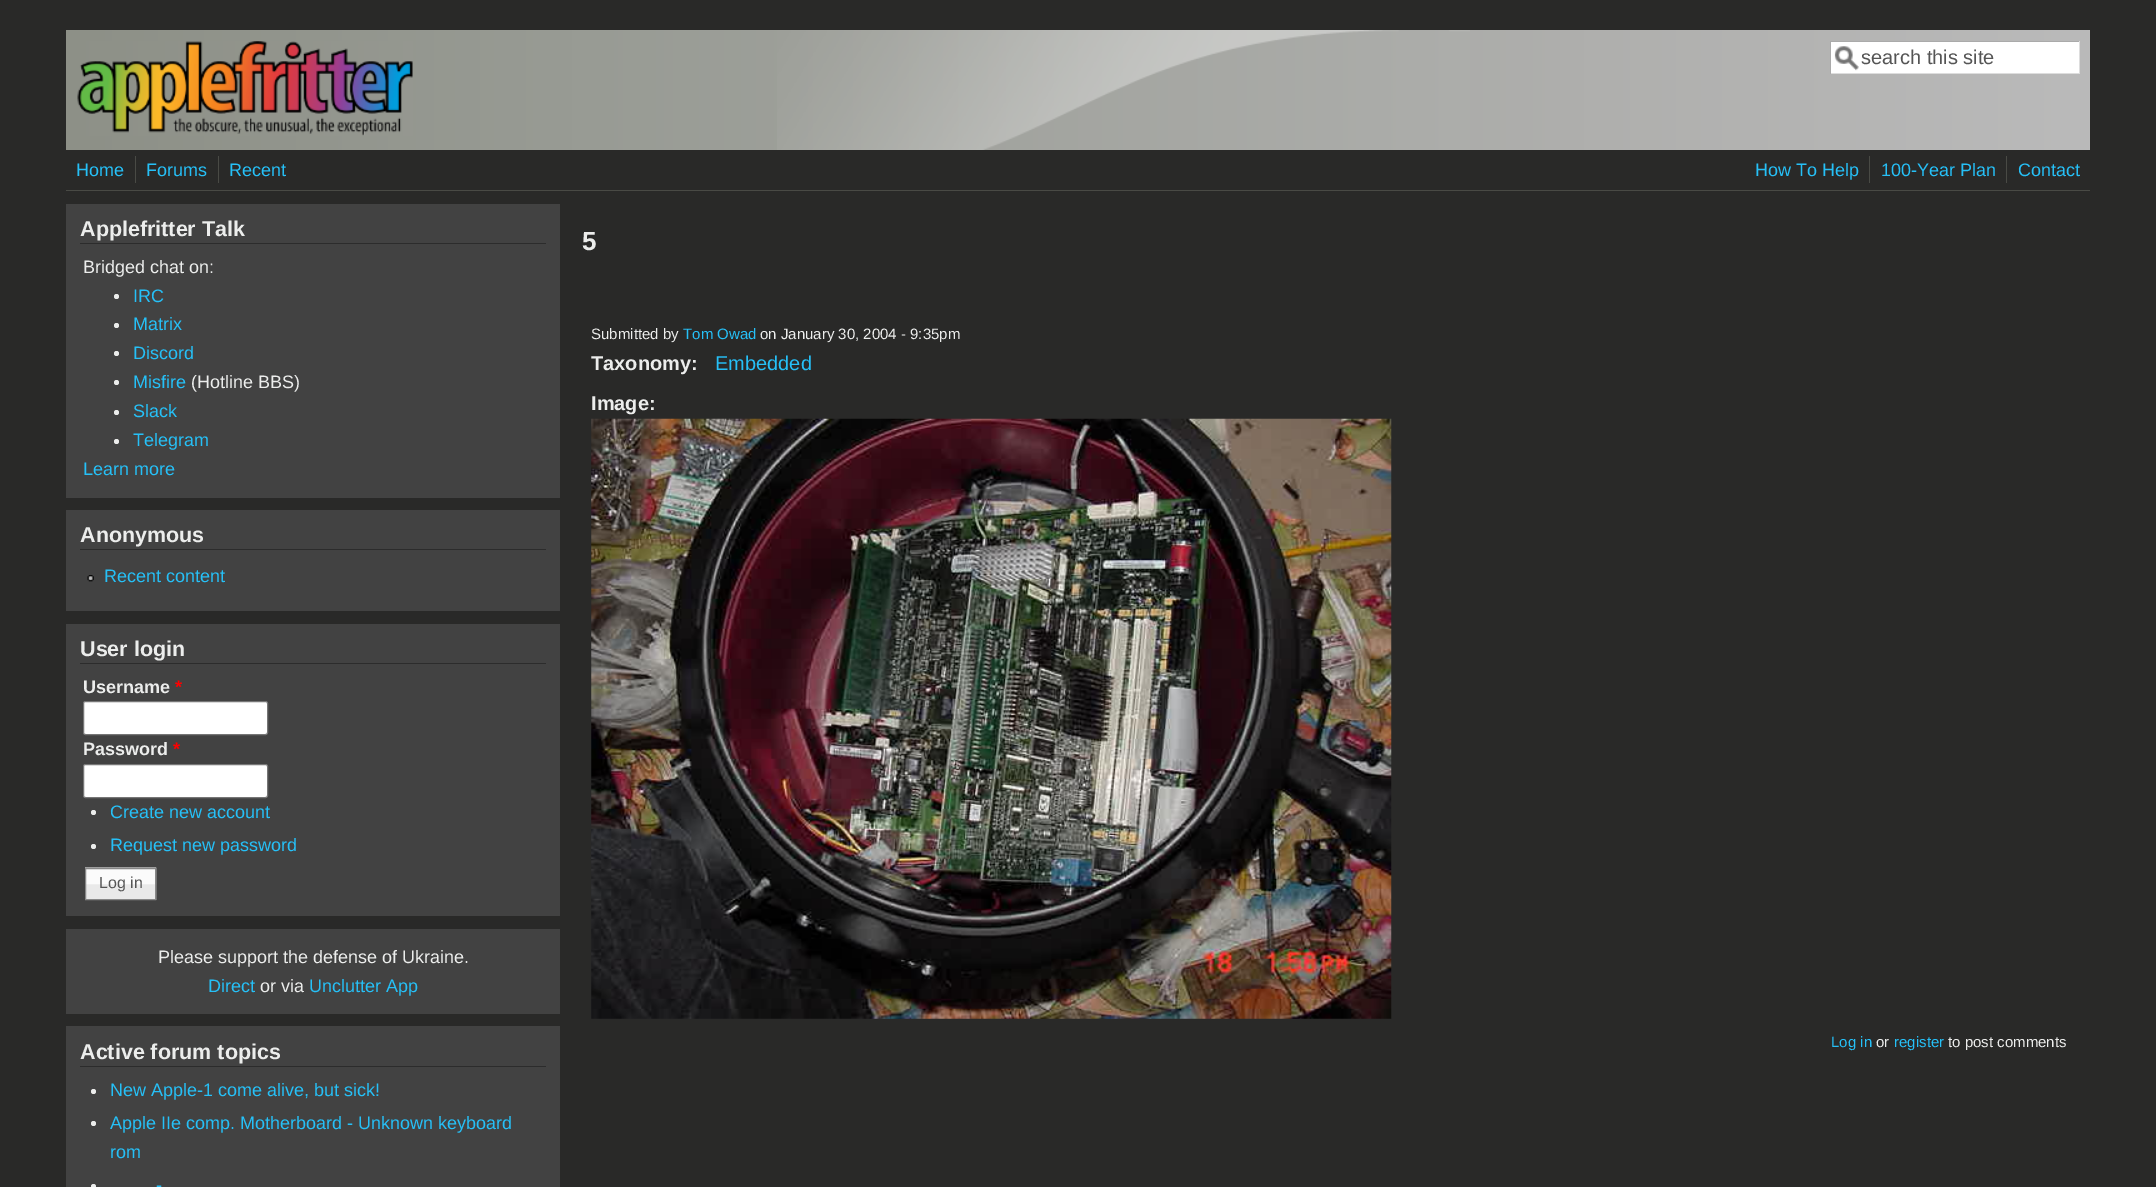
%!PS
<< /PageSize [2156 1187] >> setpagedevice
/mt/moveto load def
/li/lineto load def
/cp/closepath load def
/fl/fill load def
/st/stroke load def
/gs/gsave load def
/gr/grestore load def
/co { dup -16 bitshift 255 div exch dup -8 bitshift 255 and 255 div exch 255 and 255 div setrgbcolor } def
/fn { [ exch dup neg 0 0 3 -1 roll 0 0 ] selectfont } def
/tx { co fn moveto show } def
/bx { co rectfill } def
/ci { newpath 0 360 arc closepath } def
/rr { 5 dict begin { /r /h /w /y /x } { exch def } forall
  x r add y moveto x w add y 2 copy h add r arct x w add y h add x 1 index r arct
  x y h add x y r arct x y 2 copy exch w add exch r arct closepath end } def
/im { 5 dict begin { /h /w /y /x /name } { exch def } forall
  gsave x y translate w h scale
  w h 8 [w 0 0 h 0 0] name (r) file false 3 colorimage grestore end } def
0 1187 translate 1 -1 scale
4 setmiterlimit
0 0 2156 1187 16#292928 bx
gs 66 30 mt 2090 30 li 2090 150 li 66 150 li cp clip newpath
<< /ShadingType 2 /ColorSpace /DeviceRGB /Coords [66 90 2090 90] /Extend [true true] /Function << /FunctionType 2 /Domain [0 1] /C0 [.553 .565 .529] /C1 [.729 .729 .729] /N 1 >> >> shfill gr
(media/1.raw) 777 30 693 120 im
(media/2.raw) 77 41 336 95 im
1831 42 248 31 16#FFFFFF bx
(media/3.raw) 1834 46 25 25 im
1830 41 250 1 16#AAAAAA bx
2079 41 1 33 16#DDDDDD bx
1830 73 250 1 16#DDDDDD bx
1830 41 1 33 16#AAAAAA bx
66 190 2024 1 16#494A45 bx
135 156 1 27 16#494A45 bx
218 156 1 27 16#494A45 bx
1869 156 1 27 16#494A45 bx
2006 156 1 27 16#494A45 bx
66 204 494 294 16#424242 bx
80 243 466 1 16#2C2C2C bx
16#ECEDEC co
116.5 296.5 2.5 ci fl
116.5 325.5 2.5 ci fl
116.5 353.5 2.5 ci fl
116.5 382.5 2.5 ci fl
116.5 412.5 2.5 ci fl
116.5 441.5 2.5 ci fl
66 510 494 101 16#424242 bx
80 549 466 1 16#2C2C2C bx
(media/4.raw) 87 575 7 7 im
66 624 494 292 16#424242 bx
80 663 466 1 16#2C2C2C bx
16#FFFFFF co
83.5 701.5 184 33 2 rr gs fl gr
16#767676 co
st
16#FFFFFF co
83.5 764.5 184 33 2 rr gs fl gr
16#767676 co
st
16#ECEDEC co
93.5 812.5 2.5 ci fl
93.5 846.5 2.5 ci fl
(media/5.raw) 85 867 72 33 im
16#888888 co
85.5 868.5 70 31 rectstroke
66 929 494 85 16#424242 bx
66 1026 494 161 16#424242 bx
80 1066 466 1 16#2C2C2C bx
16#ECEDEC co
93.5 1091.5 2.5 ci fl
93.5 1123.5 2.5 ci fl
93.5 1186.5 2.5 ci fl
(media/6.raw) 591 418 801 601 im
(search this site) 1861 64 /LiberationSans-Regular 20 16#555555 tx
(Home) 76 176 /LiberationSans-Regular 18 16#26C0F7 tx
(Forums) 146 176 /LiberationSans-Regular 18 16#26C0F7 tx
(Recent) 229 176 /LiberationSans-Regular 18 16#26C0F7 tx
(How To Help) 1755 176 /LiberationSans-Regular 18 16#26C0F7 tx
(100-Year Plan) 1881 176 /LiberationSans-Regular 18 16#26C0F7 tx
(Contact) 2018 176 /LiberationSans-Regular 18 16#26C0F7 tx
(Applefritter Talk) 80 236 /LiberationSans-Bold 21.5 16#ECEDEC tx
(Bridged chat on:) 83 273 /LiberationSans-Regular 18 16#ECEDEC tx
(IRC) 133 302 /LiberationSans-Regular 18 16#26C0F7 tx
(Matrix) 133 330 /LiberationSans-Regular 18 16#26C0F7 tx
(Discord) 133 359 /LiberationSans-Regular 18 16#26C0F7 tx
(Misfire) 133 388 /LiberationSans-Regular 18 16#26C0F7 tx
(\(Hotline BBS\)) 191 388 /LiberationSans-Regular 18 16#ECEDEC tx
(Slack) 133 417 /LiberationSans-Regular 18 16#26C0F7 tx
(Telegram) 133 446 /LiberationSans-Regular 18 16#26C0F7 tx
(Learn more) 83 475 /LiberationSans-Regular 18 16#26C0F7 tx
(Anonymous) 80 542 /LiberationSans-Bold 21.5 16#ECEDEC tx
(Recent content) 104 582 /LiberationSans-Regular 18 16#26C0F7 tx
(User login) 80 656 /LiberationSans-Bold 21.5 16#ECEDEC tx
(Username) 83 693 /LiberationSans-Bold 18 16#ECEDEC tx
(*) 175 693 /LiberationSans-Bold 18 16#FF0000 tx
(Password) 83 755 /LiberationSans-Bold 18 16#ECEDEC tx
(*) 173 755 /LiberationSans-Bold 18 16#FF0000 tx
(Create new account) 110 818 /LiberationSans-Regular 18 16#26C0F7 tx
(Request new password) 110 851 /LiberationSans-Regular 18 16#26C0F7 tx
(Log in) 99 888 /LiberationSans-Regular 16 16#555555 tx
(Please support the defense of Ukraine.) 158 963 /LiberationSans-Regular 18 16#ECEDEC tx
(Direct) 208 992 /LiberationSans-Regular 18 16#26C0F7 tx
(or via) 260 992 /LiberationSans-Regular 18 16#ECEDEC tx
(Unclutter App) 309 992 /LiberationSans-Regular 18 16#26C0F7 tx
(Active forum topics) 80 1059 /LiberationSans-Bold 21.5 16#ECEDEC tx
(New Apple-1 come alive, but sick!) 110 1096 /LiberationSans-Regular 18 16#26C0F7 tx
(Apple IIe comp. Motherboard - Unknown keyboard) 110 1129 /LiberationSans-Regular 18 16#26C0F7 tx
(rom) 110 1158 /LiberationSans-Regular 18 16#26C0F7 tx
(-) 156 1191 /LiberationSans-Regular 18 16#26C0F7 tx
(5) 582 250 /LiberationSans-Bold 26 16#ECEDEC tx
(Submitted by) 591 339 /LiberationSans-Regular 15 16#ECEDEC tx
(Tom Owad) 683 339 /LiberationSans-Regular 15 16#26C0F7 tx
(on January 30, 2004 - 9:35pm) 760 339 /LiberationSans-Regular 15 16#ECEDEC tx
(Taxonomy:) 591 370 /LiberationSans-Bold 20 16#ECEDEC tx
(Embedded) 715 370 /LiberationSans-Regular 20 16#26C0F7 tx
(Image:) 591 410 /LiberationSans-Bold 20 16#ECEDEC tx
(Log in) 1831 1047 /LiberationSans-Regular 15 16#26C0F7 tx
(or) 1876 1047 /LiberationSans-Regular 15 16#ECEDEC tx
(register) 1894 1047 /LiberationSans-Regular 15 16#26C0F7 tx
(to post comments) 1948 1047 /LiberationSans-Regular 15 16#ECEDEC tx
showpage
